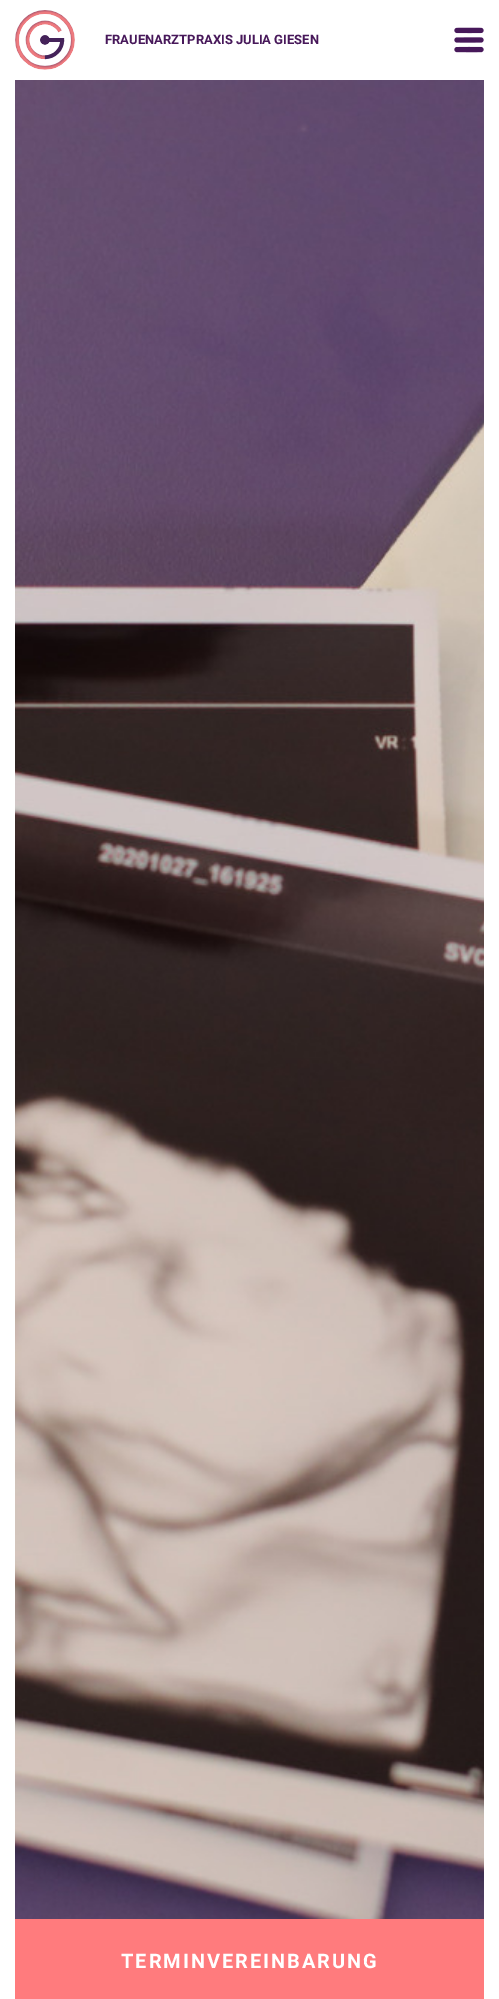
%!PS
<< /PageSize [499 1999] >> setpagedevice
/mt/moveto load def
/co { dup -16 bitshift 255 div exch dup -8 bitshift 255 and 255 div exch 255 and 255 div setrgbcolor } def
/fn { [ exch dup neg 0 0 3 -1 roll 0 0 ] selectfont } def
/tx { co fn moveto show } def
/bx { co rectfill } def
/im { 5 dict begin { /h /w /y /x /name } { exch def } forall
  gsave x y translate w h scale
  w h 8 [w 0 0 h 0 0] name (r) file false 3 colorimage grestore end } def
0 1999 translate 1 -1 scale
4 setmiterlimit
0 0 499 1999 16#FFFFFF bx
(media/1.raw) 15 10 60 60 im
(media/2.raw) 454 27 30 26 im
(media/3.raw) 15 80 469 1839 im
15 1919 469 80 16#FF7B7D bx
(FRAUENARZTPRAXIS JULIA GIESEN) 105 44 /Roboto-Bold 13 16#47185A tx
/Roboto-Bold 20 fn
16#FFFFFF co
121 1968 mt 2 0 (TERMINVEREINBARUNG) ashow
showpage
